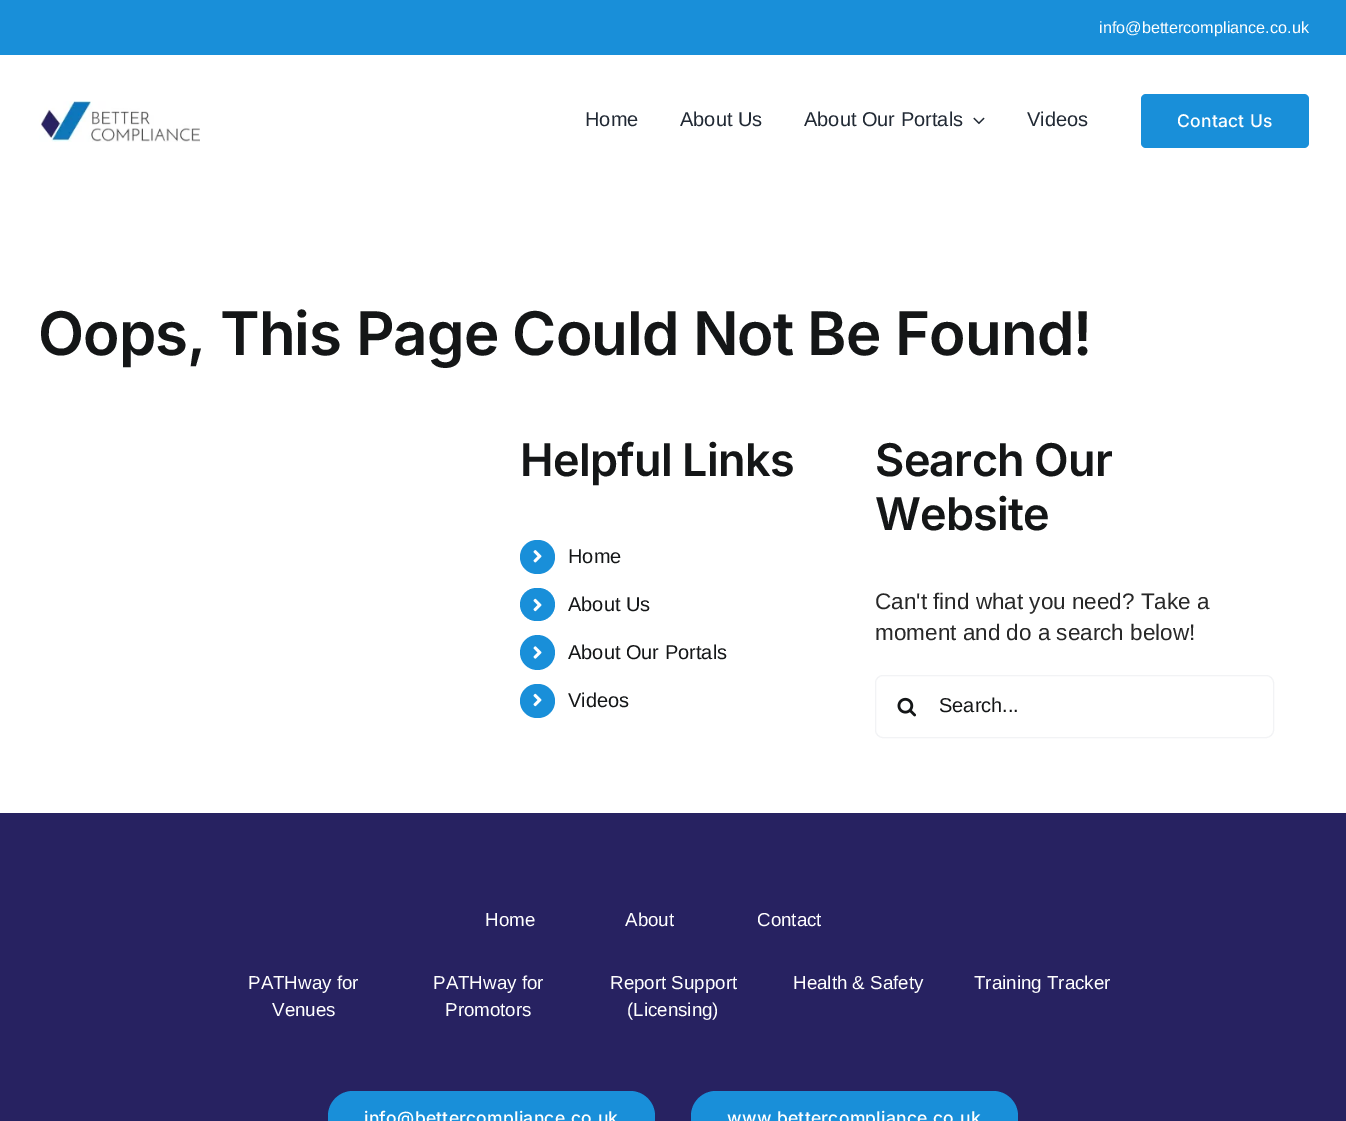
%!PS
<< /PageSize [1346 1121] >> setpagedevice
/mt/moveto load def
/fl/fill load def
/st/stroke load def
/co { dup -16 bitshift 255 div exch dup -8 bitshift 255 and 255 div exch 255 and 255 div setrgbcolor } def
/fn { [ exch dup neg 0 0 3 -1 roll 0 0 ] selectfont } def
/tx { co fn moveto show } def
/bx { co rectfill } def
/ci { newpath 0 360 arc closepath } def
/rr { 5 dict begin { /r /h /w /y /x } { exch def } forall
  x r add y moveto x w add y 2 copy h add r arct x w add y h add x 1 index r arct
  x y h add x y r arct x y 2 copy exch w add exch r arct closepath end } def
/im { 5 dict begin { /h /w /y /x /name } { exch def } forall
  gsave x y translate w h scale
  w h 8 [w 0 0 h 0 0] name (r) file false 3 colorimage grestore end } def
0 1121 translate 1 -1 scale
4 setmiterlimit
0 0 1346 1121 16#FFFFFF bx
0 0 1346 55 16#198FD9 bx
(media/1.raw) 39 101 161 41 im
(media/2.raw) 973 117 12 8 im
1141 94 168 54 5 rr fl
520 540 35 34 17 rr fl
(media/3.raw) 533 550 9 13 im
520 588 35 33 16.5 rr fl
(media/4.raw) 533 598 9 14 im
537.5 652.5 17.5 ci fl
(media/5.raw) 533 646 9 13 im
520 684 35 34 17 rr fl
(media/4.raw) 533 693 9 14 im
16#F2F3F5 co
875.5 675.5 398 62 7.5 rr st
(media/6.raw) 897 697 19 20 im
0 813 1346 308 16#272261 bx
16#198FD9 co
328 1091 327 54 25 rr fl
691 1091 327 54 25 rr fl
(info@bettercompliance.co.uk) 1099 33 /LiberationSans-Regular 16.25 16#FFFFFF tx
(Home) 585 126 /LiberationSans-Regular 20 16#212934 tx
(About Us) 680 126 /LiberationSans-Regular 20 16#212934 tx
(About Our Portals) 804 126 /LiberationSans-Regular 20 16#212934 tx
(Videos) 1027 126 /LiberationSans-Regular 20 16#212934 tx
/Inter-Medium 17.5 fn
16#FFFFFF co
1177 127 mt .25 0 (Contact Us) ashow
/Inter-SemiBold 60 fn
16#141617 co
38 355 mt -.9 0 (Oops, This Page Could Not Be Found!) ashow
/Inter-SemiBold 45 fn
520 476 mt -.75 0 (Helpful Links) ashow
(Home) 568 563 /LiberationSans-Regular 20 16#141617 tx
(About Us) 568 611 /LiberationSans-Regular 20 16#141617 tx
(About Our Portals) 568 659 /LiberationSans-Regular 20 16#141617 tx
(Videos) 568 707 /LiberationSans-Regular 20 16#141617 tx
/Inter-SemiBold 45 fn
875 476 mt -.75 0 (Search Our) ashow
875 530 mt -.75 0 (Website) ashow
(Can't find what you need? Take a) 875 609 /LiberationSans-Regular 22.5 16#282828 tx
(moment and do a search below!) 875 640 /LiberationSans-Regular 22.5 16#282828 tx
(Search...) 939 712 /LiberationSans-Regular 20 16#141617 tx
(Home) 485 926 /LiberationSans-Regular 18.75 16#FFFFFF tx
(About) 625 926 /LiberationSans-Regular 18.75 16#FFFFFF tx
(Contact) 757 926 /LiberationSans-Regular 18.75 16#FFFFFF tx
(PATHway for) 248 989 /LiberationSans-Regular 18.75 16#FFFFFF tx
(Venues) 272 1016 /LiberationSans-Regular 18.75 16#FFFFFF tx
(PATHway for) 433 989 /LiberationSans-Regular 18.75 16#FFFFFF tx
(Promotors) 445 1016 /LiberationSans-Regular 18.75 16#FFFFFF tx
(Report Support) 610 989 /LiberationSans-Regular 18.75 16#FFFFFF tx
(\(Licensing\)) 627 1016 /LiberationSans-Regular 18.75 16#FFFFFF tx
(Health & Safety) 793 989 /LiberationSans-Regular 18.75 16#FFFFFF tx
(Training Tracker) 974 989 /LiberationSans-Regular 18.75 16#FFFFFF tx
/Inter-Medium 17.5 fn
364 1124 mt .25 0 (info@bettercompliance.co.uk) ashow
727 1124 mt .25 0 (www.bettercompliance.co.uk) ashow
showpage
